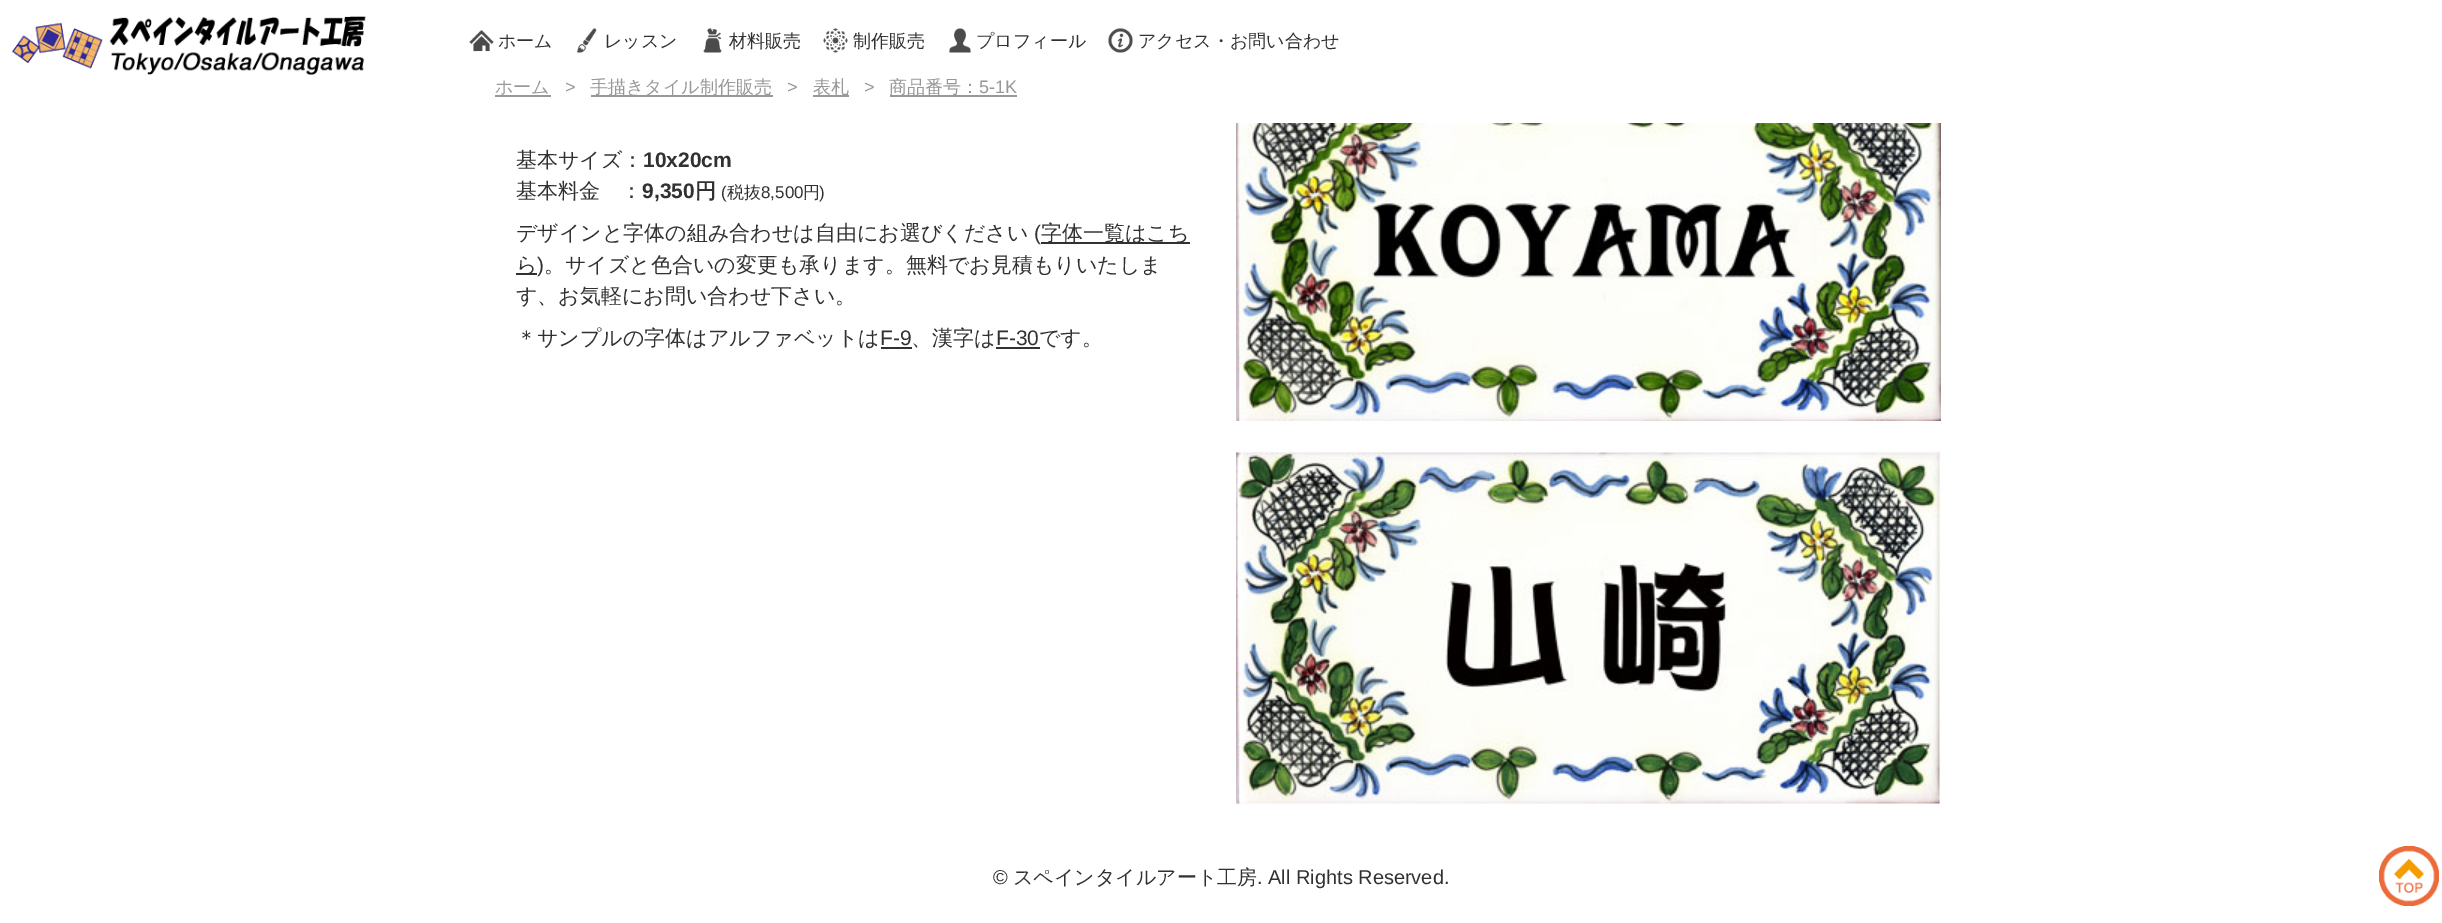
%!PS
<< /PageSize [2442 923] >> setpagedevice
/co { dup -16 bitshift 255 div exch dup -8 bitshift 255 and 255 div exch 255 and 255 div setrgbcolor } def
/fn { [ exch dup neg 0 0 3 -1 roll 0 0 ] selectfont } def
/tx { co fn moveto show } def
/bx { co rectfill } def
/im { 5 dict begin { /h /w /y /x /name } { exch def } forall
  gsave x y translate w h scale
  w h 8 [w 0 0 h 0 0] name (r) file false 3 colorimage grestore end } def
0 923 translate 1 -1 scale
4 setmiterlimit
0 0 2442 923 16#FFFFFF bx
(media/1.raw) 12 16 354 59 im
(media/2.raw) 469 30 25 22 im
(media/3.raw) 576 28 21 25 im
(media/4.raw) 703 28 19 25 im
(media/5.raw) 823 28 25 25 im
(media/6.raw) 949 28 22 25 im
(media/7.raw) 1108 28 25 25 im
495 95 56 2 16#989898 bx
591 95 182 2 16#989898 bx
813 95 36 2 16#989898 bx
890 95 127 2 16#989898 bx
(media/8.raw) 1236 123 705 298 im
1041 242 149 2 16#313131 bx
516 273 21 2 16#313131 bx
881 347 31 2 16#313131 bx
996 347 44 2 16#313131 bx
(media/9.raw) 1236 451 705 354 im
(media/10.raw) 2379 846 60 60 im
(ホーム) 498 47 /WenQuanYiZenHei-Medium 18 16#313131 tx
(レッスン) 604 47 /WenQuanYiZenHei-Medium 18 16#313131 tx
(材料販売) 729 47 /WenQuanYiZenHei-Medium 18 16#313131 tx
(制作販売) 853 47 /WenQuanYiZenHei-Medium 18 16#313131 tx
(プロフィール) 976 47 /WenQuanYiZenHei-Medium 18 16#313131 tx
(アクセス・お問い合わせ) 1138 47 /WenQuanYiZenHei-Medium 18 16#313131 tx
(ホーム) 495 93 /WenQuanYiZenHei-Medium 18 16#989898 tx
(>) 565 93 /LiberationSans-Regular 18 16#989898 tx
(手描きタイル制作販売) 590 93 /WenQuanYiZenHei-Medium 18 16#989898 tx
(>) 787 93 /LiberationSans-Regular 18 16#989898 tx
(表札) 813 93 /WenQuanYiZenHei-Medium 18 16#989898 tx
(>) 864 93 /LiberationSans-Regular 18 16#989898 tx
(商品番号：) 889 93 /WenQuanYiZenHei-Medium 18 16#989898 tx
(5-1K) 979 93 /LiberationSans-Regular 18 16#989898 tx
(基本サイズ：) 516 167 /WenQuanYiZenHei-Medium 21 16#313131 tx
(10x20cm) 643 167 /LiberationSans-Bold 21 16#313131 tx
(基本料金　：) 516 198 /WenQuanYiZenHei-Medium 21 16#313131 tx
(9,350) 642 198 /LiberationSans-Bold 21 16#313131 tx
(円) 695 198 /WenQuanYiZenHei-Bold 21 16#313131 tx
(\() 721 198 /LiberationSans-Regular 17 16#313131 tx
(税抜) 727 198 /WenQuanYiZenHei-Medium 17 16#313131 tx
(8,500) 761 198 /LiberationSans-Regular 17 16#313131 tx
(円) 803 198 /WenQuanYiZenHei-Medium 17 16#313131 tx
(\)) 819 198 /LiberationSans-Regular 17 16#313131 tx
(デザインと字体の組み合わせは自由にお選びください) 516 240 /WenQuanYiZenHei-Medium 21 16#313131 tx
(\() 1034 240 /LiberationSans-Regular 21 16#313131 tx
(字体一覧はこち) 1041 240 /WenQuanYiZenHei-Medium 21 16#313131 tx
(ら) 516 272 /WenQuanYiZenHei-Medium 21 16#313131 tx
(\)) 537 272 /LiberationSans-Regular 21 16#313131 tx
(。サイズと色合いの変更も承ります。無料でお見積もりいたしま) 544 272 /WenQuanYiZenHei-Medium 21 16#313131 tx
(す、お気軽にお問い合わせ下さい。) 516 303 /WenQuanYiZenHei-Medium 21 16#313131 tx
(＊サンプルの字体はアルファベットは) 516 345 /WenQuanYiZenHei-Medium 21 16#313131 tx
(F-9) 880 345 /LiberationSans-Regular 21 16#313131 tx
(、漢字は) 911 345 /WenQuanYiZenHei-Medium 21 16#313131 tx
(F-30) 996 345 /LiberationSans-Regular 21 16#313131 tx
(です。) 1039 345 /WenQuanYiZenHei-Medium 21 16#313131 tx
(©) 993 884 /LiberationSans-Regular 20 16#313131 tx
(スペインタイルアート工房) 1013 884 /WenQuanYiZenHei-Medium 20 16#313131 tx
(. All Rights Reserved.) 1257 884 /LiberationSans-Regular 20 16#313131 tx
showpage
